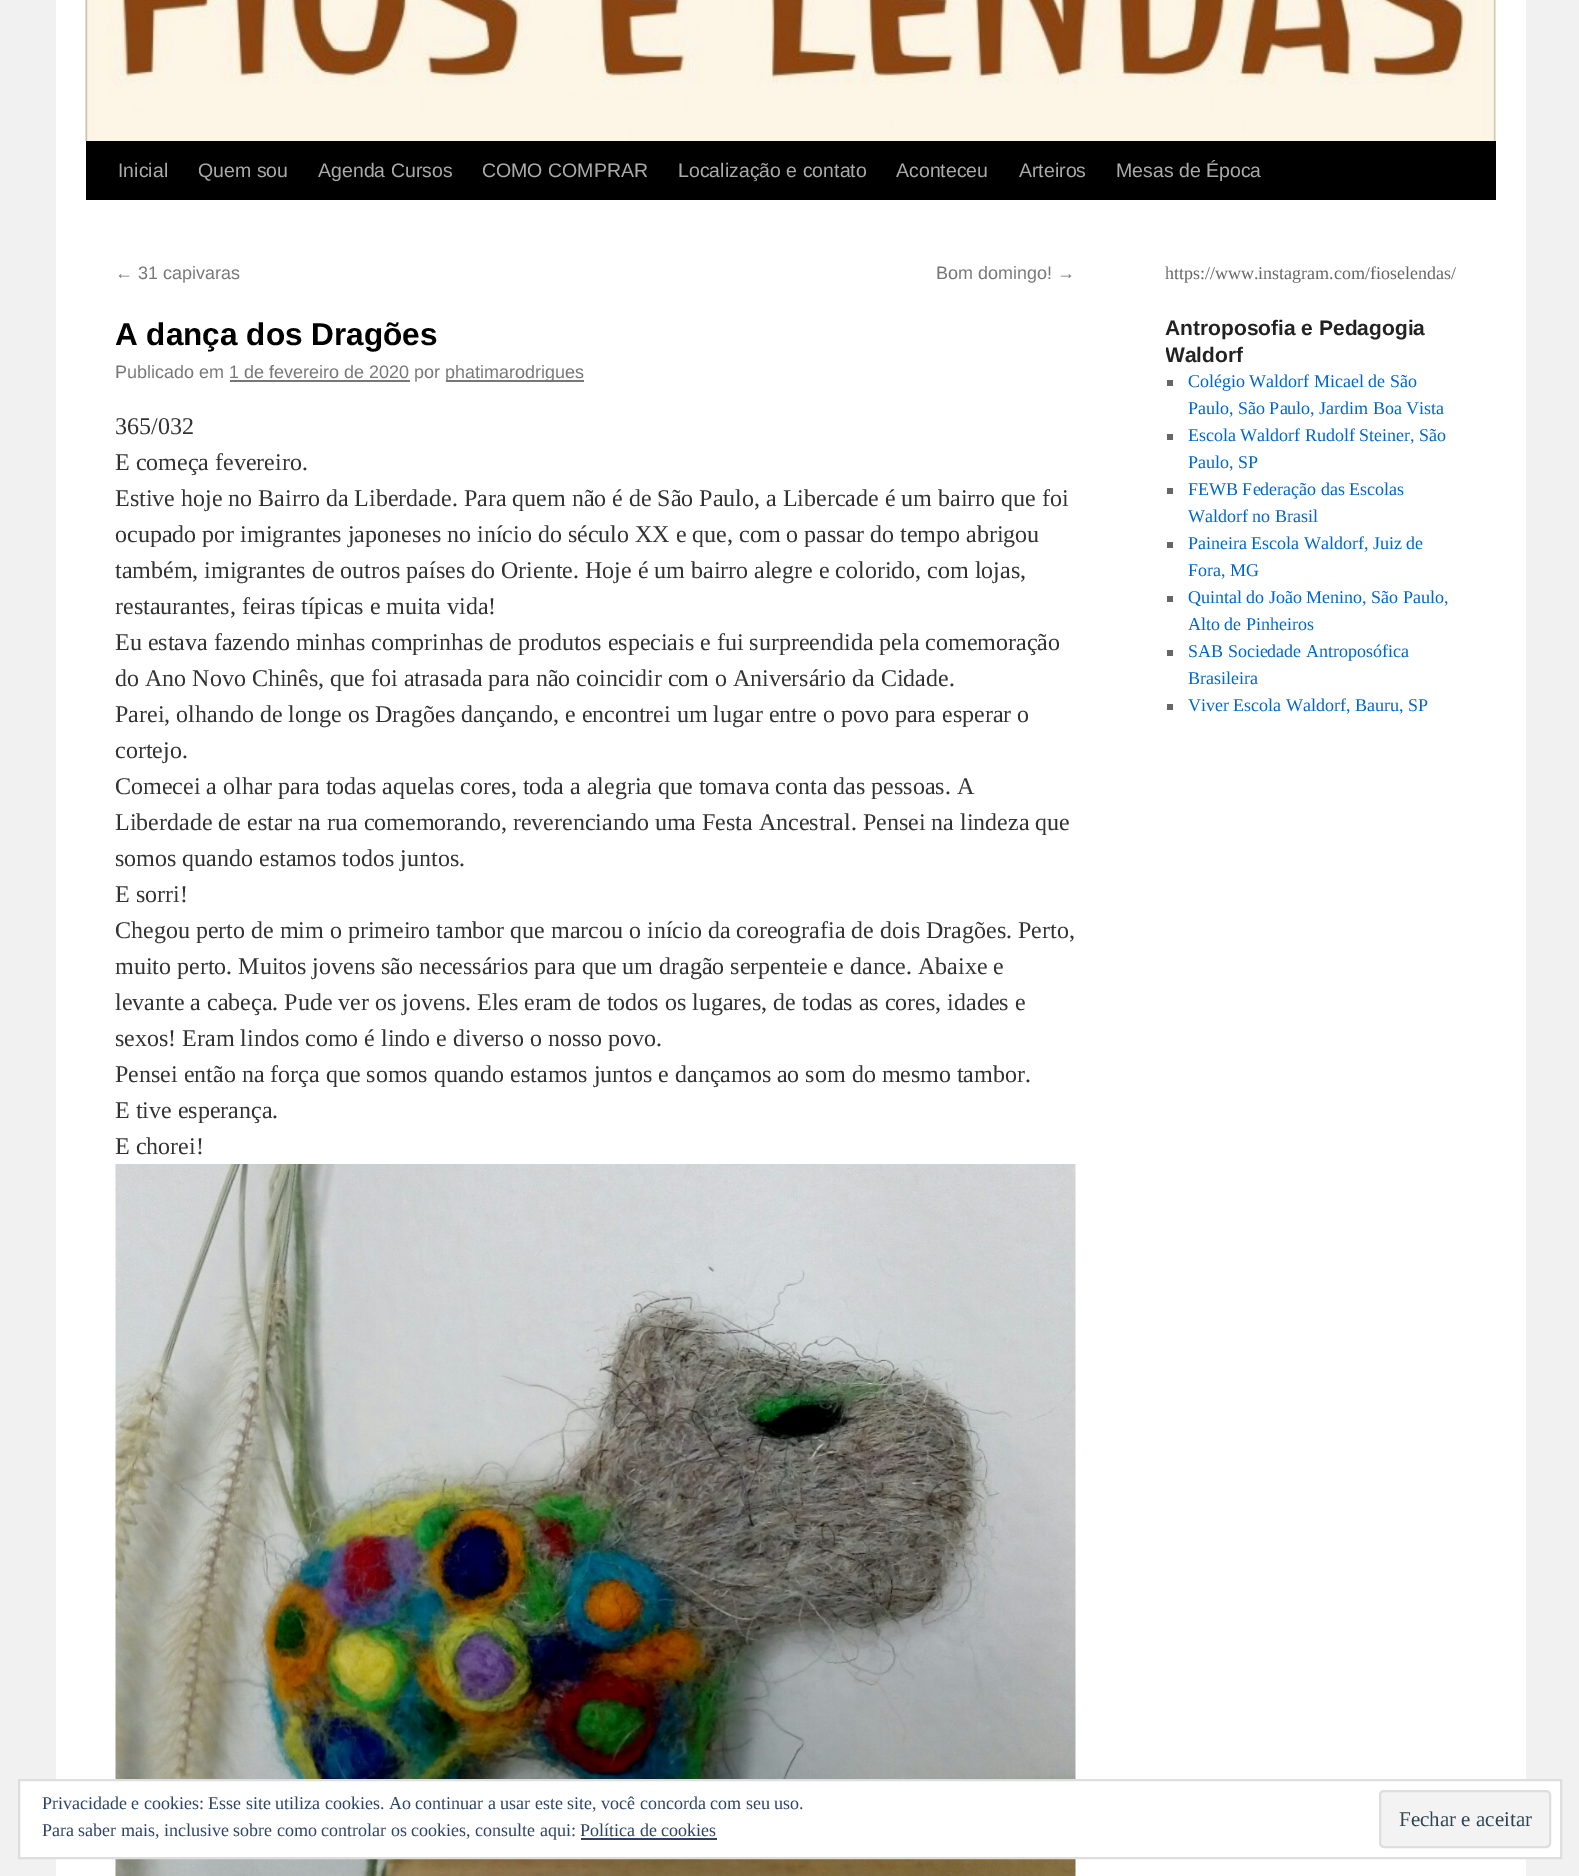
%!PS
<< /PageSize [1579 1876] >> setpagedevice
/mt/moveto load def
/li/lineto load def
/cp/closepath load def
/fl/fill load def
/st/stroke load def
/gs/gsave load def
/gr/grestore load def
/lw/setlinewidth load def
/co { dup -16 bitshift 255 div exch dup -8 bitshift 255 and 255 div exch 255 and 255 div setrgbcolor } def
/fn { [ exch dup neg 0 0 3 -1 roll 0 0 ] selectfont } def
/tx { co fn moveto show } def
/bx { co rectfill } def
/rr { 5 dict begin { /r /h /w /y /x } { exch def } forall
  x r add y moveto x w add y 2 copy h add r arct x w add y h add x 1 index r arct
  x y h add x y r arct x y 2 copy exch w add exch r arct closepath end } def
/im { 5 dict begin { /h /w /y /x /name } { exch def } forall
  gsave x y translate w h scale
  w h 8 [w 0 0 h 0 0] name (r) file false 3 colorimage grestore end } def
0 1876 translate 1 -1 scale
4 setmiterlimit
0 0 1579 1876 16#F1F1F1 bx
56 0 1470 1876 16#FFFFFF bx
86 141 1410 59 16#000000 bx
(media/1.raw) 85 0 1411 141 im
446 380 138 2 16#777777 bx
230 380 180 2 16#777777 bx
(media/2.raw) 115 1164 961 712 im
1167 380 6 6 16#666666 bx
1167 434 6 6 16#666666 bx
1167 488 6 6 16#666666 bx
1167 542 6 6 16#666666 bx
1167 596 6 6 16#666666 bx
1167 650 6 6 16#666666 bx
1167 704 6 6 16#666666 bx
16#FFFFFF co
19 1780 mt 1561 1780 li 1561 1858 li 19 1858 li cp gs fl gr
16#DEDEDE co
2 lw
st
16#F3F3F3 co
1380 1791 170 56 4 rr gs fl gr
16#DEDEDE co
st
581 1838 136 2 16#2E4467 bx
(Inicial) 118 177 /LiberationSans-Regular 19.5 16#AAAAAA tx
(Quem sou) 198 177 /LiberationSans-Regular 19.5 16#AAAAAA tx
(Agenda Cursos) 318 177 /LiberationSans-Regular 19.5 16#AAAAAA tx
(COMO COMPRAR) 482 177 /LiberationSans-Regular 19.5 16#AAAAAA tx
(Localização e contato) 678 177 /LiberationSans-Regular 19.5 16#AAAAAA tx
(Aconteceu) 896 177 /LiberationSans-Regular 19.5 16#AAAAAA tx
(Arteiros) 1019 177 /LiberationSans-Regular 19.5 16#AAAAAA tx
(Mesas de Época) 1116 177 /LiberationSans-Regular 19.5 16#AAAAAA tx
(← 31 capivaras) 115 279 /LiberationSans-Regular 18 16#777777 tx
(Bom domingo! →) 936 279 /LiberationSans-Regular 18 16#777777 tx
(A dança dos Dragões) 115 345 /LiberationSans-Bold 31.5 16#000000 tx
(Publicado em 1 de fevereiro de 2020 por) 115 378 /LiberationSans-Regular 18 16#777777 tx
(phatimarodrigues) 445 378 /LiberationSans-Regular 18 16#777777 tx
(365/032) 115 434 /LiberationSerif-Regular 24 16#333333 tx
(E começa fevereiro.) 115 470 /LiberationSerif-Regular 24 16#333333 tx
(Estive hoje no Bairro da Liberdade. Para quem não é de São Paulo, a Libercade é um bairro que foi) 115 506 /LiberationSerif-Regular 24 16#333333 tx
(ocupado por imigrantes japoneses no início do século XX e que, com o passar do tempo abrigou) 115 542 /LiberationSerif-Regular 24 16#333333 tx
(também, imigrantes de outros países do Oriente. Hoje é um bairro alegre e colorido, com lojas,) 115 578 /LiberationSerif-Regular 24 16#333333 tx
(restaurantes, feiras típicas e muita vida!) 115 614 /LiberationSerif-Regular 24 16#333333 tx
(Eu estava fazendo minhas comprinhas de produtos especiais e fui surpreendida pela comemoração) 115 650 /LiberationSerif-Regular 24 16#333333 tx
(do Ano Novo Chinês, que foi atrasada para não coincidir com o Aniversário da Cidade.) 115 686 /LiberationSerif-Regular 24 16#333333 tx
(Parei, olhando de longe os Dragões dançando, e encontrei um lugar entre o povo para esperar o) 115 722 /LiberationSerif-Regular 24 16#333333 tx
(cortejo.) 115 758 /LiberationSerif-Regular 24 16#333333 tx
(Comecei a olhar para todas aquelas cores, toda a alegria que tomava conta das pessoas. A) 115 794 /LiberationSerif-Regular 24 16#333333 tx
(Liberdade de estar na rua comemorando, reverenciando uma Festa Ancestral. Pensei na lindeza que) 115 830 /LiberationSerif-Regular 24 16#333333 tx
(somos quando estamos todos juntos.) 115 866 /LiberationSerif-Regular 24 16#333333 tx
(E sorri!) 115 902 /LiberationSerif-Regular 24 16#333333 tx
(Chegou perto de mim o primeiro tambor que marcou o início da coreografia de dois Dragões. Perto,) 115 938 /LiberationSerif-Regular 24 16#333333 tx
(muito perto. Muitos jovens são necessários para que um dragão serpenteie e dance. Abaixe e) 115 974 /LiberationSerif-Regular 24 16#333333 tx
(levante a cabeça. Pude ver os jovens. Eles eram de todos os lugares, de todas as cores, idades e) 115 1010 /LiberationSerif-Regular 24 16#333333 tx
(sexos! Eram lindos como é lindo e diverso o nosso povo.) 115 1046 /LiberationSerif-Regular 24 16#333333 tx
(Pensei então na força que somos quando estamos juntos e dançamos ao som do mesmo tambor.) 115 1082 /LiberationSerif-Regular 24 16#333333 tx
(E tive esperança.) 115 1118 /LiberationSerif-Regular 24 16#333333 tx
(E chorei!) 115 1154 /LiberationSerif-Regular 24 16#333333 tx
(https://www.instagram.com/fioselendas/) 1165 279 /LiberationSerif-Regular 18 16#666666 tx
(Antroposofia e Pedagogia) 1165 335 /LiberationSans-Bold 21 16#222222 tx
gs
1166 314 330 432 rectclip
(Waldorf) 1165 362 /LiberationSans-Bold 21 16#222222 tx
gr
(Colégio Waldorf Micael de São) 1188 387 /LiberationSerif-Regular 18 16#0066CC tx
(Paulo, São Paulo, Jardim Boa Vista) 1188 414 /LiberationSerif-Regular 18 16#0066CC tx
(Escola Waldorf Rudolf Steiner, São) 1188 441 /LiberationSerif-Regular 18 16#0066CC tx
(Paulo, SP) 1188 468 /LiberationSerif-Regular 18 16#0066CC tx
(FEWB Federação das Escolas) 1188 495 /LiberationSerif-Regular 18 16#0066CC tx
(Waldorf no Brasil) 1188 522 /LiberationSerif-Regular 18 16#0066CC tx
(Paineira Escola Waldorf, Juiz de) 1188 549 /LiberationSerif-Regular 18 16#0066CC tx
(Fora, MG) 1188 576 /LiberationSerif-Regular 18 16#0066CC tx
(Quintal do João Menino, São Paulo,) 1188 603 /LiberationSerif-Regular 18 16#0066CC tx
(Alto de Pinheiros) 1188 630 /LiberationSerif-Regular 18 16#0066CC tx
(SAB Sociedade Antroposófica) 1188 657 /LiberationSerif-Regular 18 16#0066CC tx
(Brasileira) 1188 684 /LiberationSerif-Regular 18 16#0066CC tx
(Viver Escola Waldorf, Bauru, SP) 1188 711 /LiberationSerif-Regular 18 16#0066CC tx
(Privacidade e cookies: Esse site utiliza cookies. Ao continuar a usar este site, você concorda com seu uso.) 42 1809 /LiberationSerif-Regular 18 16#2E4467 tx
(Fechar e aceitar) 1399 1826 /LiberationSerif-Regular 21 16#2E4453 tx
(Para saber mais, inclusive sobre como controlar os cookies, consulte aqui: Política de cookies) 42 1836 /LiberationSerif-Regular 18 16#2E4467 tx
showpage
